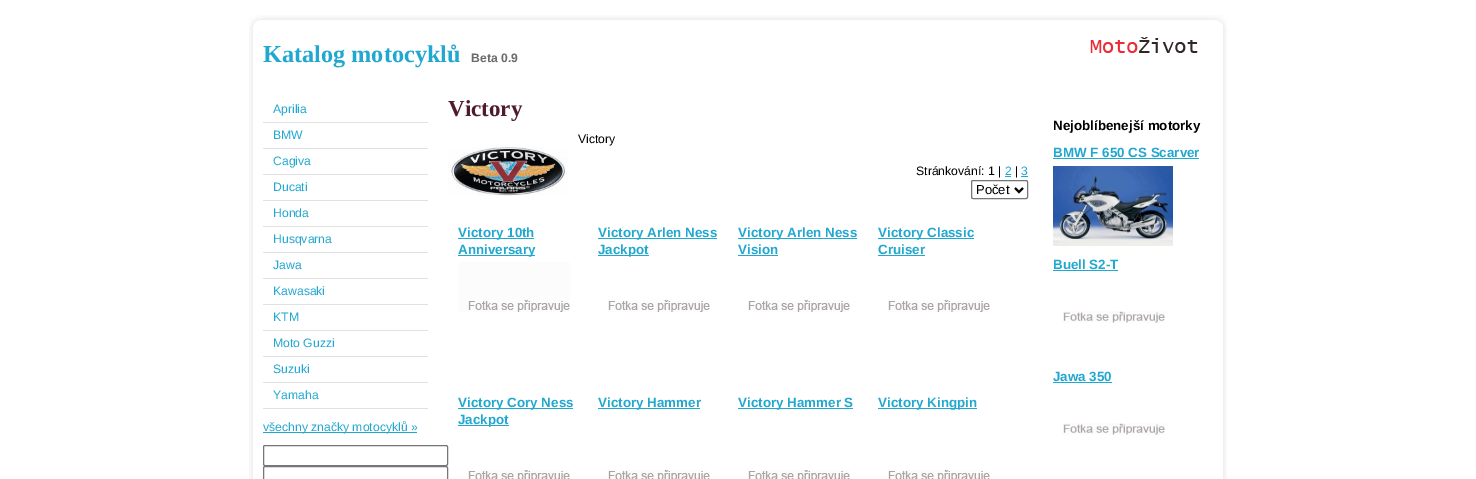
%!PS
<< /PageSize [1476 479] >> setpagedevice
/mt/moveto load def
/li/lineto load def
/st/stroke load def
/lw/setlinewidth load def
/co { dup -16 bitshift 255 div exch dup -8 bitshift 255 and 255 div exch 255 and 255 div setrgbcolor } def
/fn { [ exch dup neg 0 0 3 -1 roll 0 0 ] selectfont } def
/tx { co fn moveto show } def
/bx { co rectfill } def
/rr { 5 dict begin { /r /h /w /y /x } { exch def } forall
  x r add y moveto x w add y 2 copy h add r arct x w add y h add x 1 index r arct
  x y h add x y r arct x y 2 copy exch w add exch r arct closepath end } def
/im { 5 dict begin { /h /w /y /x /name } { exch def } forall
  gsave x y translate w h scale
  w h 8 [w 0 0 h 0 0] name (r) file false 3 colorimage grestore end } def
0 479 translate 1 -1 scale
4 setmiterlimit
0 0 1476 479 16#FFFFFF bx
(media/1.raw) 249 26 978 453 im
(media/2.raw) 249 15 978 11 im
(media/3.raw) 1090 37 108 16 im
263 122 165 1 16#E2E1E1 bx
263 148 165 1 16#E2E1E1 bx
263 174 165 1 16#E2E1E1 bx
263 200 165 1 16#E2E1E1 bx
263 226 165 1 16#E2E1E1 bx
263 252 165 1 16#E2E1E1 bx
263 278 165 1 16#E2E1E1 bx
263 304 165 1 16#E2E1E1 bx
263 330 165 1 16#E2E1E1 bx
263 356 165 1 16#E2E1E1 bx
263 382 165 1 16#E2E1E1 bx
263 408 165 1 16#E2E1E1 bx
263 432 154 1 16#21A8D0 bx
16#767676 co
263.5 445.5 184 20 1.5 rr st
263.5 466.5 184 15 1.5 rr st
(media/4.raw) 448 147 120 49 im
1005 176 6 1 16#21A8D0 bx
1021 176 7 1 16#21A8D0 bx
16#767676 co
971.5 180.5 56 18 1.5 rr st
16#000000 co
2 lw
1015 188 mt 1019 192 li 1023 188 li st
458 238 76 1 16#21A8D0 bx
458 255 77 1 16#21A8D0 bx
(media/5.raw) 458 262 112 50 im
598 238 119 1 16#21A8D0 bx
598 255 51 1 16#21A8D0 bx
(media/6.raw) 608 300 102 12 im
738 238 119 1 16#21A8D0 bx
738 255 40 1 16#21A8D0 bx
(media/6.raw) 748 300 102 12 im
878 238 96 1 16#21A8D0 bx
878 255 47 1 16#21A8D0 bx
(media/6.raw) 888 300 102 12 im
458 408 115 1 16#21A8D0 bx
458 425 51 1 16#21A8D0 bx
(media/7.raw) 468 470 102 9 im
598 408 102 1 16#21A8D0 bx
(media/7.raw) 608 470 102 9 im
738 408 115 1 16#21A8D0 bx
(media/7.raw) 748 470 102 9 im
878 408 99 1 16#21A8D0 bx
(media/7.raw) 888 470 102 9 im
1053 158 146 1 16#21A8D0 bx
(media/8.raw) 1053 166 120 80 im
1053 270 65 1 16#21A8D0 bx
(media/9.raw) 1063 311 102 12 im
1053 382 59 1 16#21A8D0 bx
(media/9.raw) 1063 423 102 12 im
(Katalog motocyklů) 263 62 /LiberationSerif-Bold 24.25 16#21A8D0 tx
(Beta 0.9) 471 62 /LiberationSans-Bold 12.2 16#6B6B6B tx
(Aprilia) 273 113 /LiberationSans-Regular 12.2 16#21A8D0 tx
(BMW) 273 139 /LiberationSans-Regular 12.2 16#21A8D0 tx
(Cagiva) 273 165 /LiberationSans-Regular 12.2 16#21A8D0 tx
(Ducati) 273 191 /LiberationSans-Regular 12.2 16#21A8D0 tx
(Honda) 273 217 /LiberationSans-Regular 12.2 16#21A8D0 tx
(Husqvarna) 273 243 /LiberationSans-Regular 12.2 16#21A8D0 tx
(Jawa) 273 269 /LiberationSans-Regular 12.2 16#21A8D0 tx
(Kawasaki) 273 295 /LiberationSans-Regular 12.2 16#21A8D0 tx
(KTM) 273 321 /LiberationSans-Regular 12.2 16#21A8D0 tx
(Moto Guzzi) 273 347 /LiberationSans-Regular 12.2 16#21A8D0 tx
(Suzuki) 273 373 /LiberationSans-Regular 12.2 16#21A8D0 tx
(Yamaha) 273 399 /LiberationSans-Regular 12.2 16#21A8D0 tx
(všechny značky motocyklů ») 263 431 /LiberationSans-Regular 12.2 16#21A8D0 tx
(Victory) 448 116 /LiberationSerif-Bold 23 16#4F1C2C tx
(Victory) 578 143 /LiberationSans-Regular 12.2 16#000000 tx
(Stránkování: 1 |) 916 175 /LiberationSans-Regular 12.2 16#000000 tx
(2) 1005 175 /LiberationSans-Regular 12.2 16#21A8D0 tx
(|) 1015 175 /LiberationSans-Regular 12.2 16#000000 tx
(3) 1021 175 /LiberationSans-Regular 12.2 16#21A8D0 tx
(Počet) 976 194 /LiberationSans-Regular 13 16#000000 tx
(Victory 10th) 458 237 /LiberationSans-Bold 13.4 16#21A8D0 tx
(Anniversary) 458 254 /LiberationSans-Bold 13.4 16#21A8D0 tx
(Victory Arlen Ness) 598 237 /LiberationSans-Bold 13.4 16#21A8D0 tx
(Jackpot) 598 254 /LiberationSans-Bold 13.4 16#21A8D0 tx
(Victory Arlen Ness) 738 237 /LiberationSans-Bold 13.4 16#21A8D0 tx
(Vision) 738 254 /LiberationSans-Bold 13.4 16#21A8D0 tx
(Victory Classic) 878 237 /LiberationSans-Bold 13.4 16#21A8D0 tx
(Cruiser) 878 254 /LiberationSans-Bold 13.4 16#21A8D0 tx
(Victory Cory Ness) 458 407 /LiberationSans-Bold 13.4 16#21A8D0 tx
(Jackpot) 458 424 /LiberationSans-Bold 13.4 16#21A8D0 tx
(Victory Hammer) 598 407 /LiberationSans-Bold 13.4 16#21A8D0 tx
(Victory Hammer S) 738 407 /LiberationSans-Bold 13.4 16#21A8D0 tx
(Victory Kingpin) 878 407 /LiberationSans-Bold 13.4 16#21A8D0 tx
(Nejoblíbenejší motorky) 1053 130 /LiberationSans-Bold 13.4 16#000000 tx
(BMW F 650 CS Scarver) 1053 157 /LiberationSans-Bold 13.4 16#21A8D0 tx
(Buell S2-T) 1053 269 /LiberationSans-Bold 13.4 16#21A8D0 tx
(Jawa 350) 1053 381 /LiberationSans-Bold 13.4 16#21A8D0 tx
showpage
